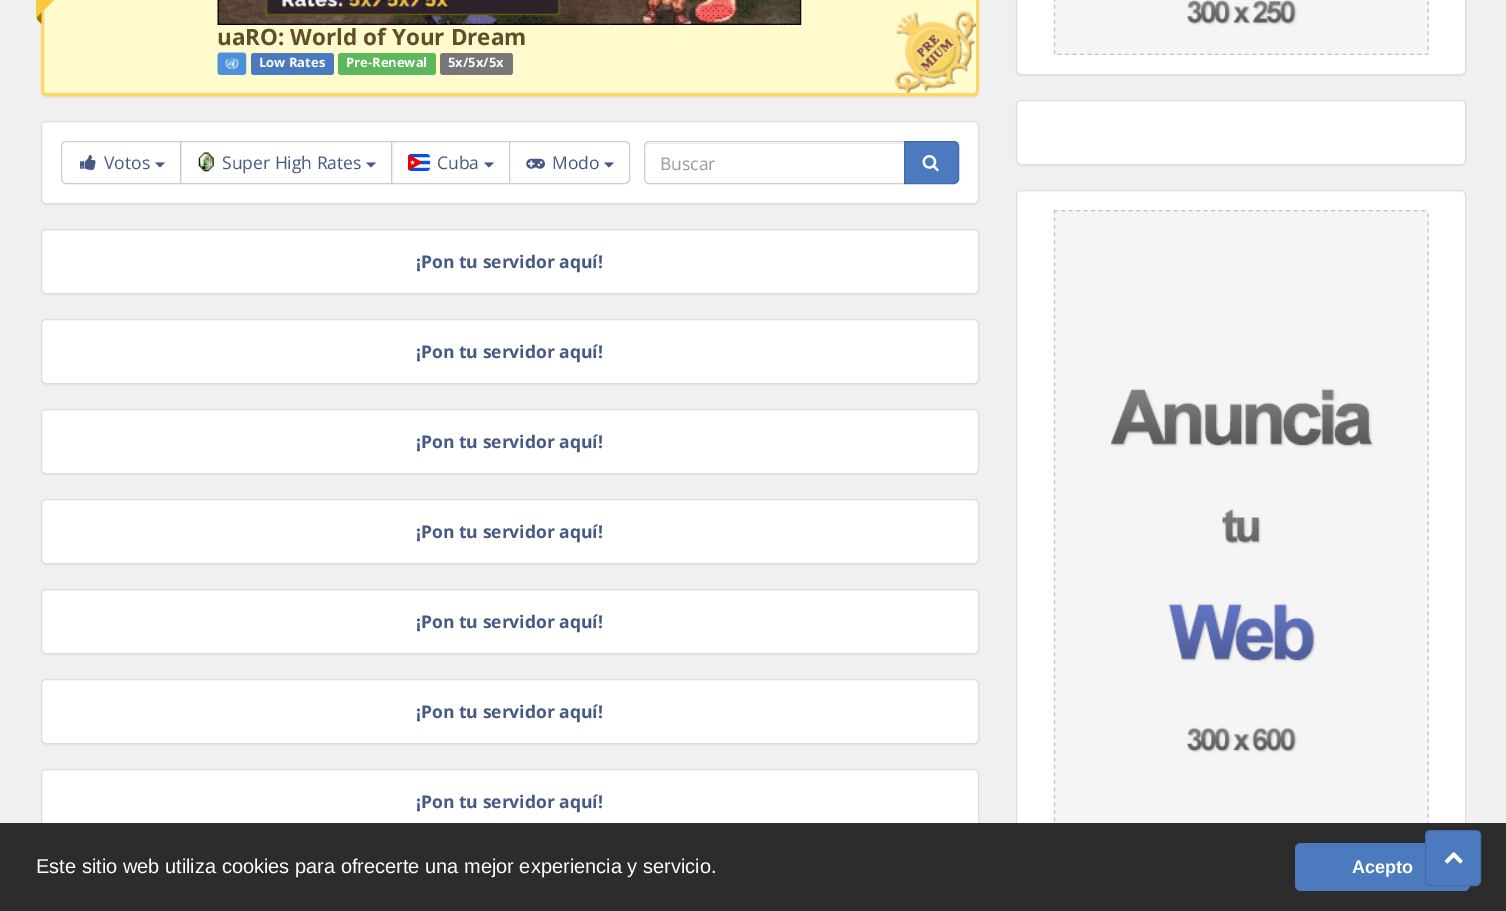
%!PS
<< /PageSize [1506 911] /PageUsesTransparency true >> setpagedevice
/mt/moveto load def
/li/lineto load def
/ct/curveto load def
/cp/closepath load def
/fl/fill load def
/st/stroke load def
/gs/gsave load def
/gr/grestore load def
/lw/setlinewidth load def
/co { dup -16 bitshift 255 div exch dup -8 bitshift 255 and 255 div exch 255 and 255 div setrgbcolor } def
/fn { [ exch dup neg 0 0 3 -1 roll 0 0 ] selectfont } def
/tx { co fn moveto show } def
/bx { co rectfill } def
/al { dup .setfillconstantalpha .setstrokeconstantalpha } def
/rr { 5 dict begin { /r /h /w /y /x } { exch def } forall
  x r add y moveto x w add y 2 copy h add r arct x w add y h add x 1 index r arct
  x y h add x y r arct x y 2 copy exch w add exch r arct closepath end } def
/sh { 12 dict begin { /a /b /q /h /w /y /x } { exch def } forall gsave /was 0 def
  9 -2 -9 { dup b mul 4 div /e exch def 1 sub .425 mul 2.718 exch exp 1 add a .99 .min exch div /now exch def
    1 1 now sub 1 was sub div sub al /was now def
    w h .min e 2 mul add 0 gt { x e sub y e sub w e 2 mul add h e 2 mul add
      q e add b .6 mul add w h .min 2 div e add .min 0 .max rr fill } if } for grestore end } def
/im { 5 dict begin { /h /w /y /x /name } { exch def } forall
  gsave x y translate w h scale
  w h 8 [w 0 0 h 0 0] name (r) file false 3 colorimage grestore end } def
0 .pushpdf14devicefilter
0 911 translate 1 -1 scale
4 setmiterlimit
0 0 1506 911 16#F0F0F0 bx
16#000000 co
41 -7 938 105 5 .5 .05 sh
16#FFFBCC co
41 -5 938 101 5 rr fl
(media/1.raw) 894 10 82 83 im
16#FED664 co
3 lw
42.5 -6.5 935 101 3.5 rr st
16#A17700 co
37 19.5 mt 37 -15.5 li 41.5 -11 li 41.5 24 li cp fl
16#FAC93E co
36 -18 mt 94 -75 li 94 -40 li 36 18 li cp fl
(media/2.raw) 217 0 585 25 im
(media/3.raw) 217 52 30 23 im
16#4B7ABE co
251 53 83 22 3 rr fl
16#5CB85C co
338 53 98 22 3 rr fl
16#777777 co
440 53 73 22 3 rr fl
16#000000 co
41 123 938 82 5 .5 .05 sh
16#FFFFFF co
41.5 121.5 937 82 4.5 rr gs fl gr
16#DDDDDD co
1 lw
st
16#CCCCCC co
66 141.5 mt 180.5 141.5 li 180.5 183.5 li 66 183.5 li 63.5 183.5 61.5 181.5 61.5 179 ct 61.5 146 li 61.5 143.5 63.5 141.5 66 141.5 ct cp st
(media/4.raw) 80 155 16 15 im
16#465984 co
155 162.5 mt 165 162.5 li 160 167.5 li cp fl
16#CCCCCC co
180.5 141.5 212 42 rectstroke
(media/5.raw) 198 152 16 20 im
16#465984 co
366 162.5 mt 376 162.5 li 371 167.5 li cp fl
392 142 1 41 16#FFFFFF bx
16#CCCCCC co
391.5 141.5 118 42 rectstroke
(media/6.raw) 408 154 22 17 im
16#465984 co
484 162.5 mt 494 162.5 li 489 167.5 li cp fl
16#FFFFFF co
509.5 141.5 mt 625 141.5 li 627.5 141.5 629.5 143.5 629.5 146 ct 629.5 179 li 629.5 181.5 627.5 183.5 625 183.5 ct 509.5 183.5 li cp gs fl gr
16#CCCCCC co
st
(media/7.raw) 526 158 19 11 im
16#465984 co
604 162.5 mt 614 162.5 li 609 167.5 li cp fl
16#ECECEC co
649 144 mt 904 144 li 904 143 li 649 143 li 647 143 645 145 645 147 ct 645 148 li 645 145 647 144 649 144 ct cp fl
16#CCCCCC co
649 141.5 mt 904.5 141.5 li 904.5 183.5 li 649 183.5 li 646.5 183.5 644.5 181.5 644.5 179 ct 644.5 146 li 644.5 143.5 646.5 141.5 649 141.5 ct cp st
16#4B7ABE co
904.5 141.5 mt 954 141.5 li 956.5 141.5 958.5 143.5 958.5 146 ct 958.5 179 li 958.5 181.5 956.5 183.5 954 183.5 ct 904.5 183.5 li cp gs fl gr
16#416BA6 co
st
(media/8.raw) 922 155 17 17 im
16#000000 co
41 230 938 65 5 .5 .05 sh
16#FFFFFF co
41.5 229.5 937 64 4.5 rr gs fl gr
16#DDDDDD co
st
16#000000 co
41 320 938 65 5 .5 .05 sh
16#FFFFFF co
41.5 319.5 937 64 4.5 rr gs fl gr
16#DDDDDD co
st
16#000000 co
41 410 938 65 5 .5 .05 sh
16#FFFFFF co
41.5 409.5 937 64 4.5 rr gs fl gr
16#DDDDDD co
st
16#000000 co
41 500 938 65 5 .5 .05 sh
16#FFFFFF co
41.5 499.5 937 64 4.5 rr gs fl gr
16#DDDDDD co
st
16#000000 co
41 590 938 65 5 .5 .05 sh
16#FFFFFF co
41.5 589.5 937 64 4.5 rr gs fl gr
16#DDDDDD co
st
16#000000 co
41 680 938 65 5 .5 .05 sh
16#FFFFFF co
41.5 679.5 937 64 4.5 rr gs fl gr
16#DDDDDD co
st
16#FFFFFF co
41.5 769.5 937 64 4.5 rr gs fl gr
16#DDDDDD co
st
16#000000 co
1016 -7 450 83 5 .5 .05 sh
16#FFFFFF co
1016.5 -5.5 449 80 4.5 rr gs fl gr
16#DDDDDD co
st
(media/9.raw) 1053 0 376 55 im
16#000000 co
1016 101 450 65 5 .5 .05 sh
16#FFFFFF co
1016.5 100.5 449 64 4.5 rr gs fl gr
16#DDDDDD co
st
16#FFFFFF co
1016.5 190.5 449 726 4.5 rr gs fl gr
16#DDDDDD co
st
(media/10.raw) 1053 210 376 613 im
0 823 1506 88 16#2C2C2C bx
16#4B7ABE co
1295 843 175 48 6 rr fl
1425.5 830.5 55 55 4.5 rr gs fl gr
16#416BA6 co
st
(media/11.raw) 1444 852 19 12 im
(uaRO: World of Your Dream) 217 45 /OpenSans-Bold 22.5 16#604D2C tx
(Low Rates) 259 67 /OpenSans-Bold 13 16#FFFFFF tx
(Pre-Renewal) 346 67 /OpenSans-Bold 13 16#FFFFFF tx
(5x/5x/5x) 448 67 /OpenSans-Bold 13 16#FFFFFF tx
(Votos) 104 169 /OpenSans-Regular 17.5 16#465984 tx
(Super High Rates) 222 169 /OpenSans-Regular 17.5 16#465984 tx
(Cuba) 437 169 /OpenSans-Regular 17.5 16#465984 tx
(Modo) 552 169 /OpenSans-Regular 17.5 16#465984 tx
(Buscar) 660 170 /OpenSans-Regular 17.5 16#999999 tx
(¡Pon tu servidor aquí!) 416 268 /OpenSans-Bold 17.5 16#465984 tx
(¡Pon tu servidor aquí!) 416 358 /OpenSans-Bold 17.5 16#465984 tx
(¡Pon tu servidor aquí!) 416 448 /OpenSans-Bold 17.5 16#465984 tx
(¡Pon tu servidor aquí!) 416 538 /OpenSans-Bold 17.5 16#465984 tx
(¡Pon tu servidor aquí!) 416 628 /OpenSans-Bold 17.5 16#465984 tx
(¡Pon tu servidor aquí!) 416 718 /OpenSans-Bold 17.5 16#465984 tx
(¡Pon tu servidor aquí!) 416 808 /OpenSans-Bold 17.5 16#465984 tx
(Este sitio web utiliza cookies para ofrecerte una mejor experiencia y servicio.) 36 873 /LiberationSans-Regular 20 16#FFFFFF tx
(Acepto) 1352 873 /LiberationSans-Bold 18 16#FFFFFF tx
.poppdf14devicefilter showpage
